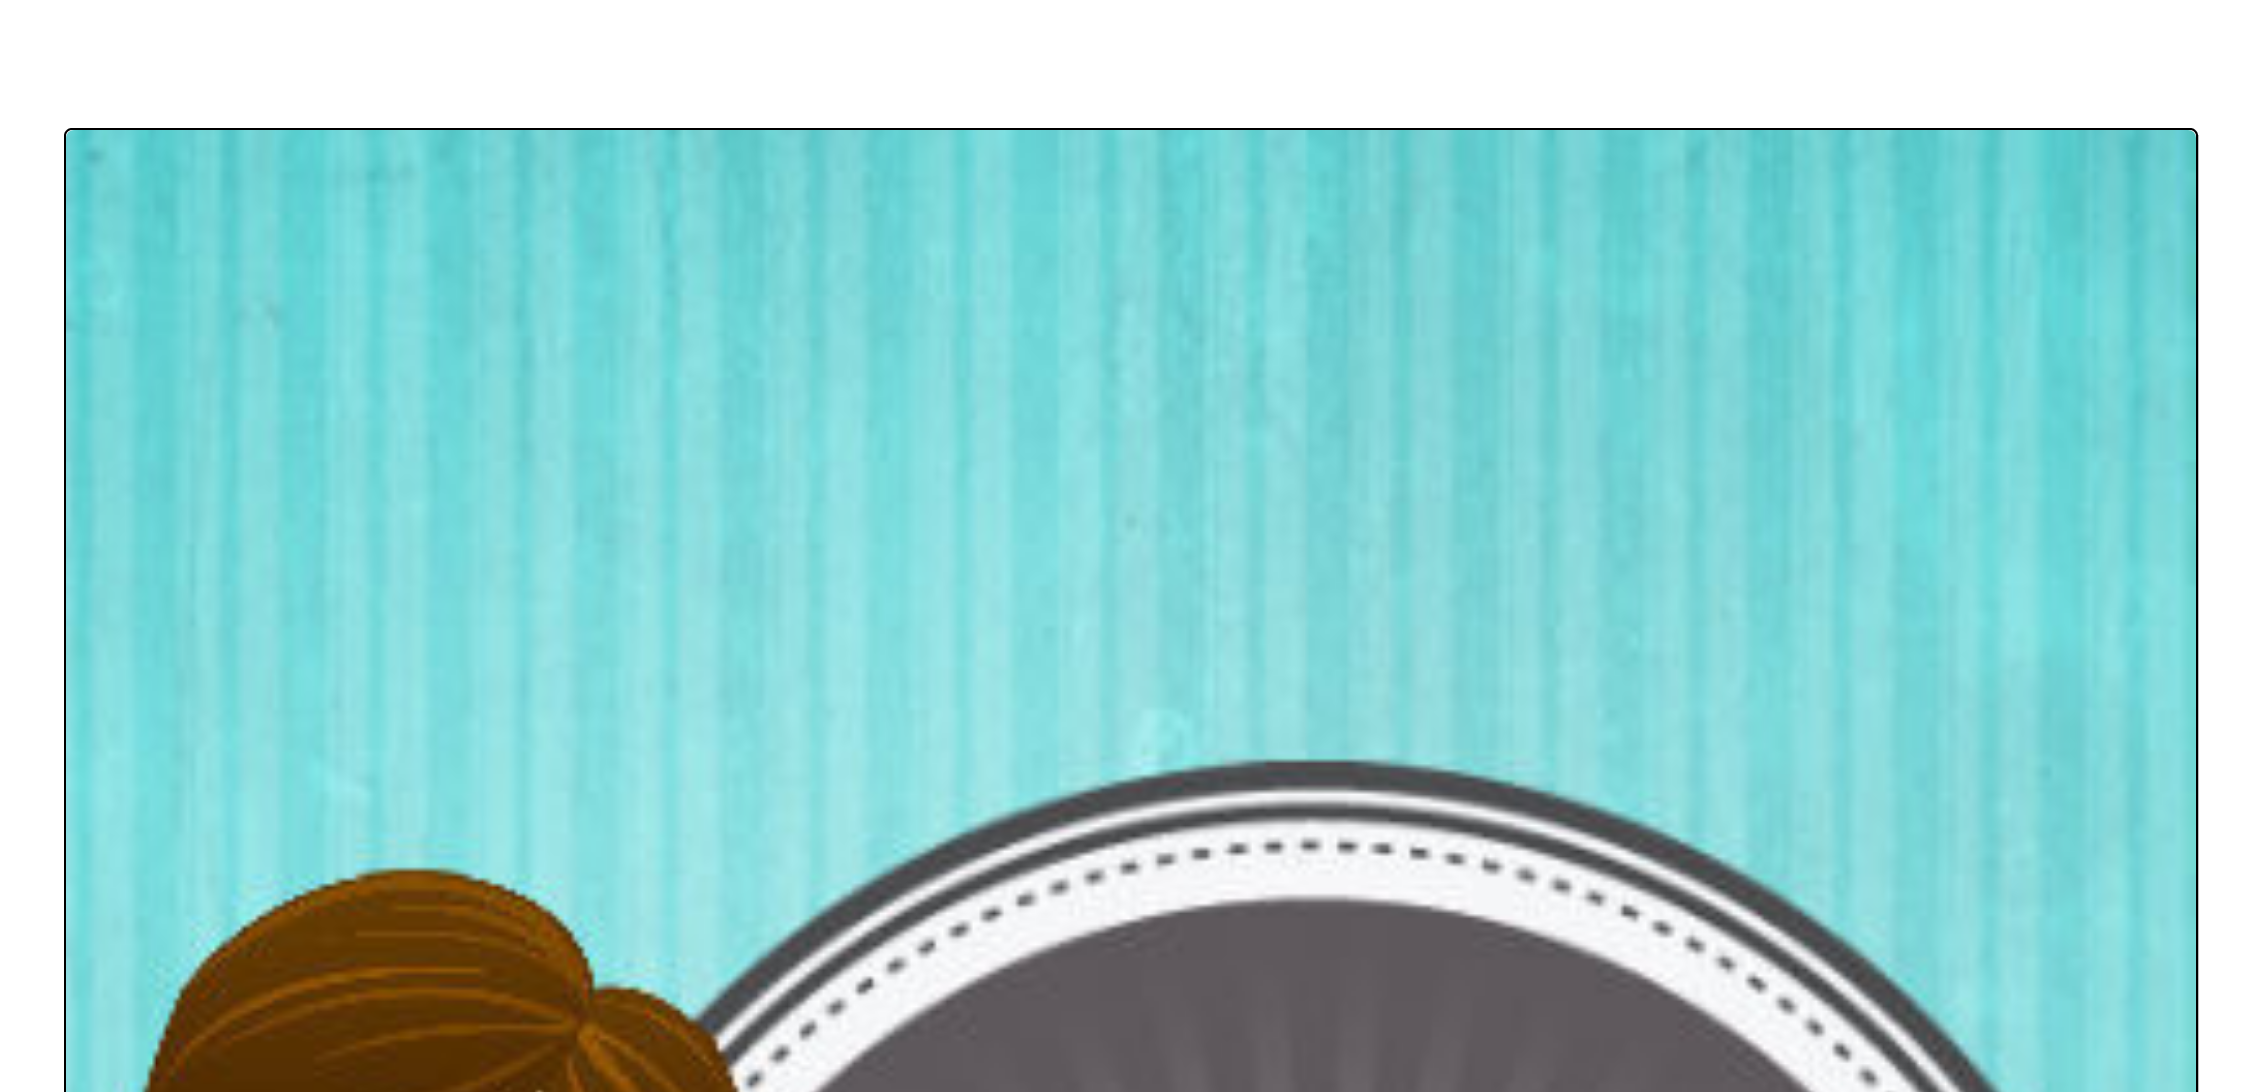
%!PS
<< /PageSize [2261 1092] >> setpagedevice
/st/stroke load def
/lw/setlinewidth load def
/co { dup -16 bitshift 255 div exch dup -8 bitshift 255 and 255 div exch 255 and 255 div setrgbcolor } def
/bx { co rectfill } def
/rr { 5 dict begin { /r /h /w /y /x } { exch def } forall
  x r add y moveto x w add y 2 copy h add r arct x w add y h add x 1 index r arct
  x y h add x y r arct x y 2 copy exch w add exch r arct closepath end } def
/im { 5 dict begin { /h /w /y /x /name } { exch def } forall
  gsave x y translate w h scale
  w h 8 [w 0 0 h 0 0] name (r) file false 3 colorimage grestore end } def
0 1092 translate 1 -1 scale
4 setmiterlimit
0 0 2261 1092 16#FFFFFF bx
16#000000 co
2 lw
65 129 2132 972 7 rr st
(media/1.raw) 66 130 2130 8 im
(media/2.raw) 66 130 2130 962 im
showpage
